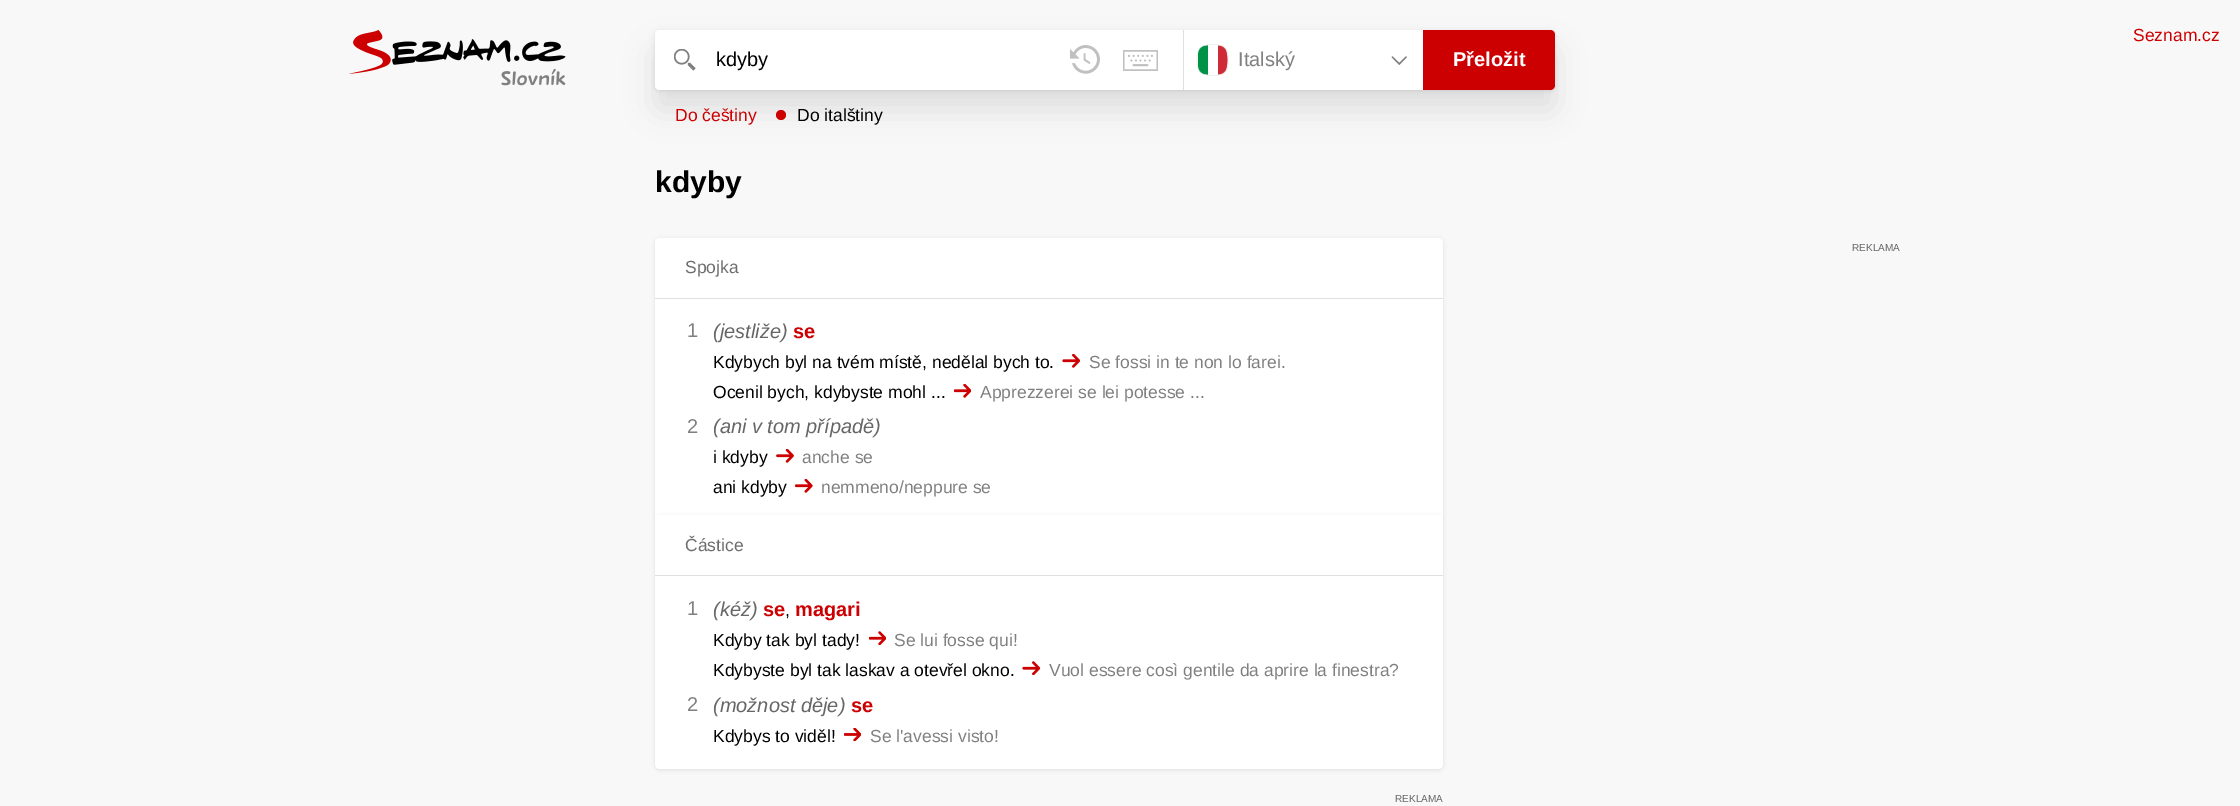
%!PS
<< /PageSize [2240 806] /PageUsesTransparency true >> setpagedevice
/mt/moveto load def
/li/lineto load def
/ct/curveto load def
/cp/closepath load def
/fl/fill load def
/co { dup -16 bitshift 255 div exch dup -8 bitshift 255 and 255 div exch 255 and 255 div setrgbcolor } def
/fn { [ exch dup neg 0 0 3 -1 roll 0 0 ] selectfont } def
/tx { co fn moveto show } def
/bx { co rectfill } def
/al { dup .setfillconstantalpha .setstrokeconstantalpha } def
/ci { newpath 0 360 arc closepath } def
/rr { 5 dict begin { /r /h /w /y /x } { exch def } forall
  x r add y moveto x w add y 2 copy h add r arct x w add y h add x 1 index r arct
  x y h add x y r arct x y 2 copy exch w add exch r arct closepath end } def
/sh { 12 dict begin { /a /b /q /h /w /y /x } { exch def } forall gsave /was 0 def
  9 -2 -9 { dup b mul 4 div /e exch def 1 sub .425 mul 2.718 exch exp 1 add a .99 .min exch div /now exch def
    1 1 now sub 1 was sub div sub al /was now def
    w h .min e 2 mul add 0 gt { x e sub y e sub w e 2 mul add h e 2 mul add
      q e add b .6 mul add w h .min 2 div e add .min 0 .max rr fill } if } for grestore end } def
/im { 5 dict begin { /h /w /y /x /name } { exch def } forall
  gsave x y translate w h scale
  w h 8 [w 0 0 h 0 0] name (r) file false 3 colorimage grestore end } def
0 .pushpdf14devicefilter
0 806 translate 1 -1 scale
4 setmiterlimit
0 0 2240 806 16#F8F8F8 bx
(media/1.raw) 349 30 217 56 im
16#000000 co
655 31 900 60 5 2 .1 sh
655 50 900 60 5 15 .1 sh
16#FFFFFF co
655 30 900 60 5 rr fl
655 30 60 60 5 rr fl
(media/2.raw) 674 49 22 22 im
(media/3.raw) 1070 45 30 29 im
(media/4.raw) 1123 50 35 21 im
1183 30 1 60 16#E0E0E0 bx
(media/5.raw) 1196 44 33 32 im
(media/6.raw) 1391 56 16 9 im
16#CC0000 co
1423 30 mt 1550 30 li 1553 30 1555 32 1555 35 ct 1555 85 li 1555 88 1553 90 1550 90 ct 1423 90 li cp fl
781 115 5 ci fl
16#000000 co
655 239 788 282 5 2 .1 sh
16#FFFFFF co
655 238 788 282 5 rr fl
655 298 788 1 16#E0E0E0 bx
(media/7.raw) 1062 354 18 14 im
(media/8.raw) 954 384 17 14 im
(media/9.raw) 776 449 18 14 im
(media/10.raw) 795 479 18 14 im
16#000000 co
655 516 788 254 5 2 .1 sh
16#FFFFFF co
655 515 mt 1443 515 li 1443 764 li 1443 767 1441 769 1438 769 ct 660 769 li 657 769 655 767 655 764 ct cp fl
655 575 788 1 16#E0E0E0 bx
(media/11.raw) 869 631 17 14 im
(media/12.raw) 1022 661 18 14 im
(media/13.raw) 844 728 17 13 im
(kdyby) 716 66 /LiberationSans-Regular 20 16#000000 tx
(Italský) 1238 66 /LiberationSans-Regular 20 16#808080 tx
(Přeložit) 1453 66 /LiberationSans-Bold 20 16#FFFFFF tx
(Do češtiny) 675 121 /LiberationSans-Regular 17.5 16#CC0000 tx
(Do italštiny) 797 121 /LiberationSans-Regular 17.5 16#000000 tx
(Seznam.cz) 2133 41 /LiberationSans-Regular 17.5 16#CC0000 tx
(kdyby) 655 192 /LiberationSans-Bold 30 16#000000 tx
(REKLAMA) 1852 251 /LiberationSans-Regular 10 16#666666 tx
(Spojka) 685 273 /LiberationSans-Regular 17.5 16#6D6D6D tx
(1) 687 337 /LiberationSans-Regular 20 16#808080 tx
(\(jestliže\)) 713 338 /LiberationSans-Italic 20 16#666666 tx
(se) 793 338 /LiberationSans-Bold 20 16#CC0000 tx
(Kdybych byl na tvém místě, nedělal bych to.) 713 368 /LiberationSans-Regular 17.5 16#000000 tx
(Se fossi in te non lo farei.) 1089 368 /LiberationSans-Regular 17.5 16#808080 tx
(Ocenil bych, kdybyste mohl ...) 713 398 /LiberationSans-Regular 17.5 16#000000 tx
(Apprezzerei se lei potesse ...) 980 398 /LiberationSans-Regular 17.5 16#808080 tx
(2) 687 433 /LiberationSans-Regular 20 16#808080 tx
(\(ani v tom případě\)) 713 433 /LiberationSans-Italic 20 16#666666 tx
(i kdyby) 713 463 /LiberationSans-Regular 17.5 16#000000 tx
(anche se) 802 463 /LiberationSans-Regular 17.5 16#808080 tx
(ani kdyby) 713 493 /LiberationSans-Regular 17.5 16#000000 tx
(nemmeno/neppure se) 821 493 /LiberationSans-Regular 17.5 16#808080 tx
(Částice) 685 551 /LiberationSans-Regular 17.5 16#6D6D6D tx
(1) 687 615 /LiberationSans-Regular 20 16#808080 tx
(\(kéž\)) 713 616 /LiberationSans-Italic 20 16#666666 tx
(se) 763 616 /LiberationSans-Bold 20 16#CC0000 tx
(,) 785 616 /LiberationSans-Regular 17.5 16#000000 tx
(magari) 795 616 /LiberationSans-Bold 20 16#CC0000 tx
(Kdyby tak byl tady!) 713 646 /LiberationSans-Regular 17.5 16#000000 tx
(Se lui fosse qui!) 894 646 /LiberationSans-Regular 17.5 16#808080 tx
(Kdybyste byl tak laskav a otevřel okno.) 713 676 /LiberationSans-Regular 17.5 16#000000 tx
(Vuol essere così gentile da aprire la finestra?) 1049 676 /LiberationSans-Regular 17.5 16#808080 tx
(2) 687 711 /LiberationSans-Regular 20 16#808080 tx
(\(možnost děje\)) 713 712 /LiberationSans-Italic 20 16#666666 tx
(se) 851 712 /LiberationSans-Bold 20 16#CC0000 tx
(Kdybys to viděl!) 713 742 /LiberationSans-Regular 17.5 16#000000 tx
(Se l'avessi visto!) 870 742 /LiberationSans-Regular 17.5 16#808080 tx
(REKLAMA) 1395 802 /LiberationSans-Regular 10 16#666666 tx
.poppdf14devicefilter showpage
